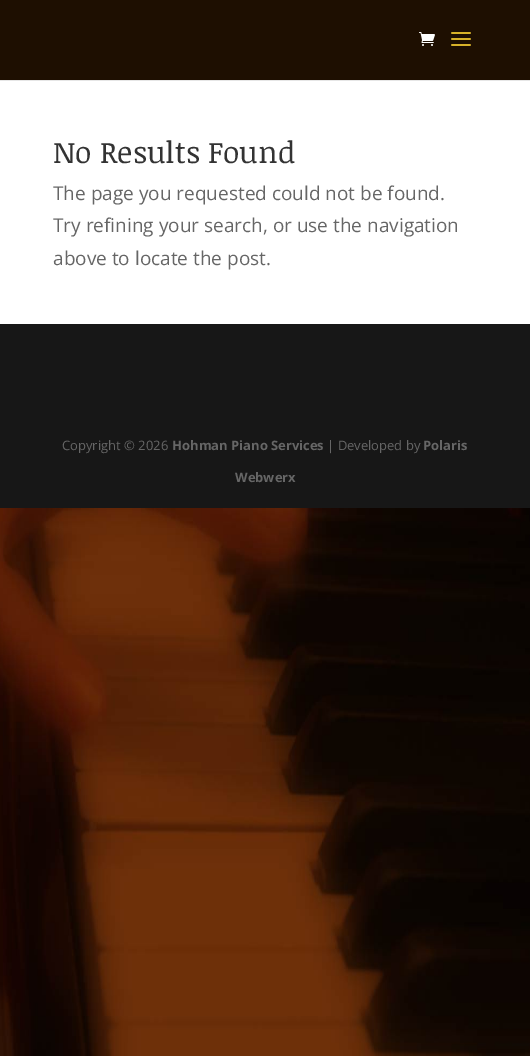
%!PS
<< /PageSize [530 1056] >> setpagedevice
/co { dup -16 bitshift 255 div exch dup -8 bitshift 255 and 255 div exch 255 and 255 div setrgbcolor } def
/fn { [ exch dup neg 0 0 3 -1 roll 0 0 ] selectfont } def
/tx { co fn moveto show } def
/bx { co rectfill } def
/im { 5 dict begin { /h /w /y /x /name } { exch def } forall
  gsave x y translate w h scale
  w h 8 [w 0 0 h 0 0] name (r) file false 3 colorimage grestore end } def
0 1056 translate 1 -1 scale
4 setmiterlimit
0 0 530 1056 16#FFFFFF bx
0 80 530 1 16#E6E6E6 bx
0 0 530 80 16#1E0F01 bx
(media/1.raw) 419 32 16 14 im
(media/2.raw) 451 32 20 14 im
0 324 530 184 16#171717 bx
(media/3.raw) 0 508 530 548 im
(No Results Found) 53 163 /NoticiaText-Regular 30 16#333333 tx
(The page you requested could not be found.) 53 200 /OpenSans-Regular 19 16#666666 tx
(Try refining your search, or use the navigation) 53 232 /OpenSans-Regular 19 16#666666 tx
(above to locate the post.) 53 265 /OpenSans-Regular 19 16#666666 tx
(Copyright © 2026) 62 450 /OpenSans-Regular 13 16#666666 tx
(Hohman Piano Services) 172 450 /OpenSans-Bold 13 16#666666 tx
(| Developed by) 327 450 /OpenSans-Regular 13 16#666666 tx
(Polaris) 423 450 /OpenSans-Bold 13 16#666666 tx
(Webwerx) 235 482 /OpenSans-Bold 13 16#666666 tx
showpage
